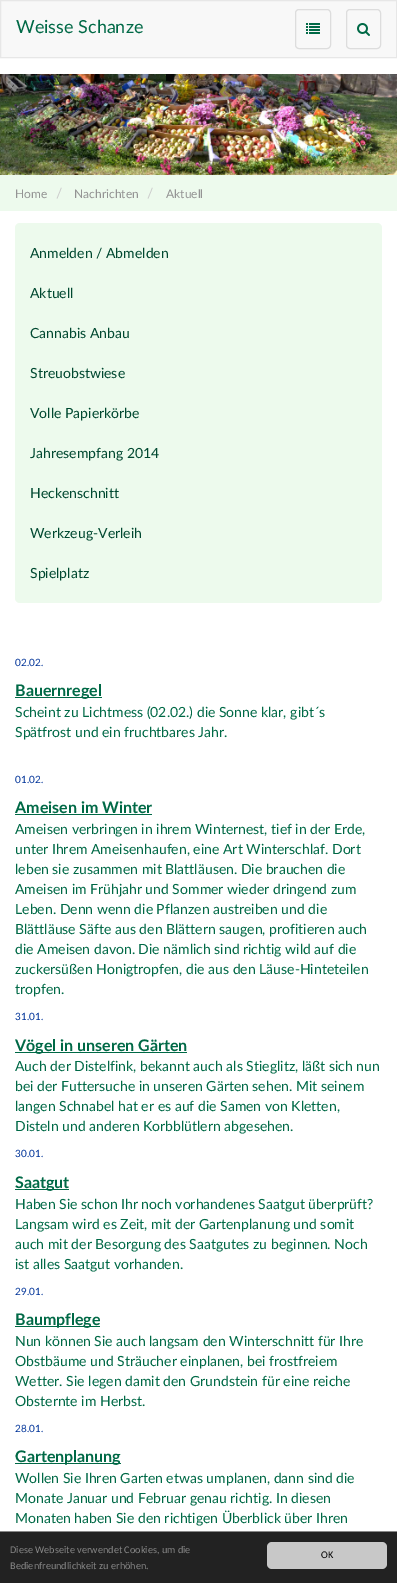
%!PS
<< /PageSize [397 1583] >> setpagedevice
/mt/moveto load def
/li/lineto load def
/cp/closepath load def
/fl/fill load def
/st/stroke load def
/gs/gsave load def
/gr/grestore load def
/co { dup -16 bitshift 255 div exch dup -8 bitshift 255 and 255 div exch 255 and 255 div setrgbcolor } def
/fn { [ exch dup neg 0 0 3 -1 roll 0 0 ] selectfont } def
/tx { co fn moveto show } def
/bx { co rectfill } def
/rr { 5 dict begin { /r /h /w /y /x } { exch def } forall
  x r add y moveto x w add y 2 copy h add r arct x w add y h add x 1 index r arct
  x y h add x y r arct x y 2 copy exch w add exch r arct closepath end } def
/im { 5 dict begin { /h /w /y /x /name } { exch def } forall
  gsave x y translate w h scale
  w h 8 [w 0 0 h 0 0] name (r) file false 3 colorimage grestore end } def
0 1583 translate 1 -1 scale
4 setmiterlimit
0 0 397 1583 16#FFFFFF bx
16#F8F8F8 co
.5 .5 mt 396.5 .5 li 396.5 57.5 li .5 57.5 li cp gs fl gr
16#E7E7E7 co
st
16#DDDDDD co
295.5 9.5 35 39 3.5 rr st
(media/1.raw) 306 23 14 11 im
346.5 9.5 34 39 3.5 rr st
(media/2.raw) 357 23 13 13 im
(media/3.raw) 0 74 397 101 im
0 175 397 36 16#EDFAED bx
15 223 367 380 5 rr fl
15 697 87 1 16#006946 bx
15 814 137 1 16#006946 bx
15 1052 172 1 16#006946 bx
15 1189 54 1 16#006946 bx
15 1326 85 1 16#006946 bx
15 1463 106 1 16#006946 bx
0 1532 397 51 16#222222 bx
0 1531 397 1 16#888888 bx
16#C8C8C8 co
267 1542 120 27 5 rr fl
(Weisse Schanze) 16 33 /Lato-Regular 18 16#006946 tx
(Home) 15 198 /Lato-Regular 12 16#949494 tx
(/) 56 198 /Lato-Regular 14 16#CCCCCC tx
(Nachrichten) 74 198 /Lato-Regular 12 16#949494 tx
(/) 147 198 /Lato-Regular 14 16#CCCCCC tx
(Aktuell) 166 198 /Lato-Regular 12 16#949494 tx
(Anmelden / Abmelden) 30 258 /Lato-Regular 14 16#004830 tx
(Aktuell) 30 298 /Lato-Regular 14 16#004830 tx
(Cannabis Anbau) 30 338 /Lato-Regular 14 16#004830 tx
(Streuobstwiese) 30 378 /Lato-Regular 14 16#004830 tx
(Volle Papierkörbe) 30 418 /Lato-Regular 14 16#004830 tx
(Jahresempfang 2014) 30 458 /Lato-Regular 14 16#004830 tx
(Heckenschnitt) 30 498 /Lato-Regular 14 16#004830 tx
(Werkzeug-Verleih) 30 538 /Lato-Regular 14 16#004830 tx
(Spielplatz) 30 578 /Lato-Regular 14 16#004830 tx
(02.02.) 15 666 /Lato-Regular 10 16#003399 tx
(Bauernregel) 15 696 /Lato-Bold 16 16#006946 tx
(Scheint zu Lichtmess \(02.02.\) die Sonne klar, gibt´s) 15 717 /Lato-Regular 14 16#006946 tx
(Spätfrost und ein fruchtbares Jahr.) 15 737 /Lato-Regular 14 16#006946 tx
(01.02.) 15 783 /Lato-Regular 10 16#003399 tx
(Ameisen im Winter) 15 813 /Lato-Bold 16 16#006946 tx
(Ameisen verbringen in ihrem Winternest, tief in der Erde,) 15 834 /Lato-Regular 14 16#006946 tx
(unter Ihrem Ameisenhaufen, eine Art Winterschlaf. Dort) 15 854 /Lato-Regular 14 16#006946 tx
(leben sie zusammen mit Blattläusen. Die brauchen die) 15 874 /Lato-Regular 14 16#006946 tx
(Ameisen im Frühjahr und Sommer wieder dringend zum) 15 894 /Lato-Regular 14 16#006946 tx
(Leben. Denn wenn die Pflanzen austreiben und die) 15 914 /Lato-Regular 14 16#006946 tx
(Blättläuse Säfte aus den Blättern saugen, profitieren auch) 15 934 /Lato-Regular 14 16#006946 tx
(die Ameisen davon. Die nämlich sind richtig wild auf die) 15 954 /Lato-Regular 14 16#006946 tx
(zuckersüßen Honigtropfen, die aus den Läuse-Hinteteilen) 15 974 /Lato-Regular 14 16#006946 tx
(tropfen.) 15 994 /Lato-Regular 14 16#006946 tx
(31.01.) 15 1020 /Lato-Regular 10 16#003399 tx
(Vögel in unseren Gärten) 15 1051 /Lato-Bold 16 16#006946 tx
(Auch der Distelfink, bekannt auch als Stieglitz, läßt sich nun) 15 1071 /Lato-Regular 14 16#006946 tx
(bei der Futtersuche in unseren Gärten sehen. Mit seinem) 15 1091 /Lato-Regular 14 16#006946 tx
(langen Schnabel hat er es auf die Samen von Kletten,) 15 1111 /Lato-Regular 14 16#006946 tx
(Disteln und anderen Korbblütlern abgesehen.) 15 1131 /Lato-Regular 14 16#006946 tx
(30.01.) 15 1157 /Lato-Regular 10 16#003399 tx
(Saatgut) 15 1188 /Lato-Bold 16 16#006946 tx
(Haben Sie schon Ihr noch vorhandenes Saatgut überprüft?) 15 1209 /Lato-Regular 14 16#006946 tx
(Langsam wird es Zeit, mit der Gartenplanung und somit) 15 1229 /Lato-Regular 14 16#006946 tx
(auch mit der Besorgung des Saatgutes zu beginnen. Noch) 15 1249 /Lato-Regular 14 16#006946 tx
(ist alles Saatgut vorhanden.) 15 1269 /Lato-Regular 14 16#006946 tx
(29.01.) 15 1295 /Lato-Regular 10 16#003399 tx
(Baumpflege) 15 1325 /Lato-Bold 16 16#006946 tx
(Nun können Sie auch langsam den Winterschnitt für Ihre) 15 1346 /Lato-Regular 14 16#006946 tx
(Obstbäume und Sträucher einplanen, bei frostfreiem) 15 1366 /Lato-Regular 14 16#006946 tx
(Wetter. Sie legen damit den Grundstein für eine reiche) 15 1386 /Lato-Regular 14 16#006946 tx
(Obsternte im Herbst.) 15 1406 /Lato-Regular 14 16#006946 tx
(28.01.) 15 1432 /Lato-Regular 10 16#003399 tx
(Gartenplanung) 15 1462 /Lato-Bold 16 16#006946 tx
(Wollen Sie Ihren Garten etwas umplanen, dann sind die) 15 1483 /Lato-Regular 14 16#006946 tx
(Monate Januar und Februar genau richtig. In diesen) 15 1503 /Lato-Regular 14 16#006946 tx
(Monaten haben Sie den richtigen Überblick über Ihren) 15 1523 /Lato-Regular 14 16#006946 tx
(Diese Webseite verwendet Cookies, um die) 10 1553 /Carlito-Regular 10.25 16#888888 tx
(Bedienfreundlichkeit zu erhöhen.) 10 1569 /Carlito-Regular 10.25 16#888888 tx
(OK) 321 1558 /Carlito-Regular 10.25 16#000000 tx
showpage
